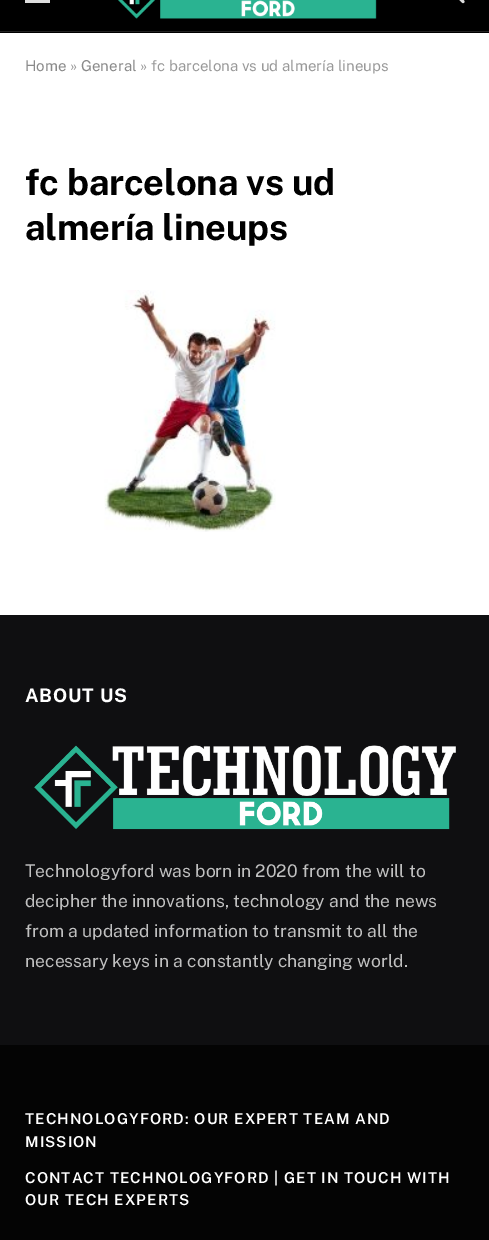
%!PS
<< /PageSize [489 1240] >> setpagedevice
/mt/moveto load def
/co { dup -16 bitshift 255 div exch dup -8 bitshift 255 and 255 div exch 255 and 255 div setrgbcolor } def
/fn { [ exch dup neg 0 0 3 -1 roll 0 0 ] selectfont } def
/tx { co fn moveto show } def
/bx { co rectfill } def
/im { 5 dict begin { /h /w /y /x /name } { exch def } forall
  gsave x y translate w h scale
  w h 8 [w 0 0 h 0 0] name (r) file false 3 colorimage grestore end } def
0 1240 translate 1 -1 scale
4 setmiterlimit
0 0 489 1240 16#FFFFFF bx
0 0 489 33 16#000000 bx
0 31 489 1 16#222222 bx
25 0 25 3 16#DDDDDD bx
(media/1.raw) 118 0 259 19 im
(media/2.raw) 459 0 6 4 im
(media/3.raw) 104 290 172 242 im
0 615 489 430 16#0F0F11 bx
(media/4.raw) 34 745 422 85 im
0 1045 489 195 16#040404 bx
(Home) 25 71 /PublicSans-Regular 15 16#8A8A8A tx
(») 70 71 /PublicSans-Regular 15 16#999999 tx
(General) 81 71 /PublicSans-Regular 15 16#8A8A8A tx
(» fc barcelona vs ud almería lineups) 140 71 /PublicSans-Regular 15 16#999999 tx
/PublicSans-Bold 36.25 fn
16#000000 co
25 195 mt -.2 0 (fc barcelona vs ud) ashow
25 240 mt -.2 0 (almería lineups) ashow
/PublicSans-Bold 18.75 fn
16#FFFFFF co
25 702 mt .75 0 (ABOUT US) ashow
(Technologyford was born in 2020 from the will to) 25 877 /PublicSans-Regular 17.5 16#C0C0C0 tx
(decipher the innovations, technology and the news) 25 907 /PublicSans-Regular 17.5 16#C0C0C0 tx
(from a updated information to transmit to all the) 25 937 /PublicSans-Regular 17.5 16#C0C0C0 tx
(necessary keys in a constantly changing world.) 25 967 /PublicSans-Regular 17.5 16#C0C0C0 tx
/PublicSans-SemiBold 15 fn
16#FFFFFF co
25 1124 mt 1.05 0 (TECHNOLOGYFORD: OUR EXPERT TEAM AND) ashow
25 1147 mt 1.05 0 (MISSION) ashow
25 1183 mt 1.05 0 (CONTACT TECHNOLOGYFORD | GET IN TOUCH WITH) ashow
25 1205 mt 1.05 0 (OUR TECH EXPERTS) ashow
showpage
